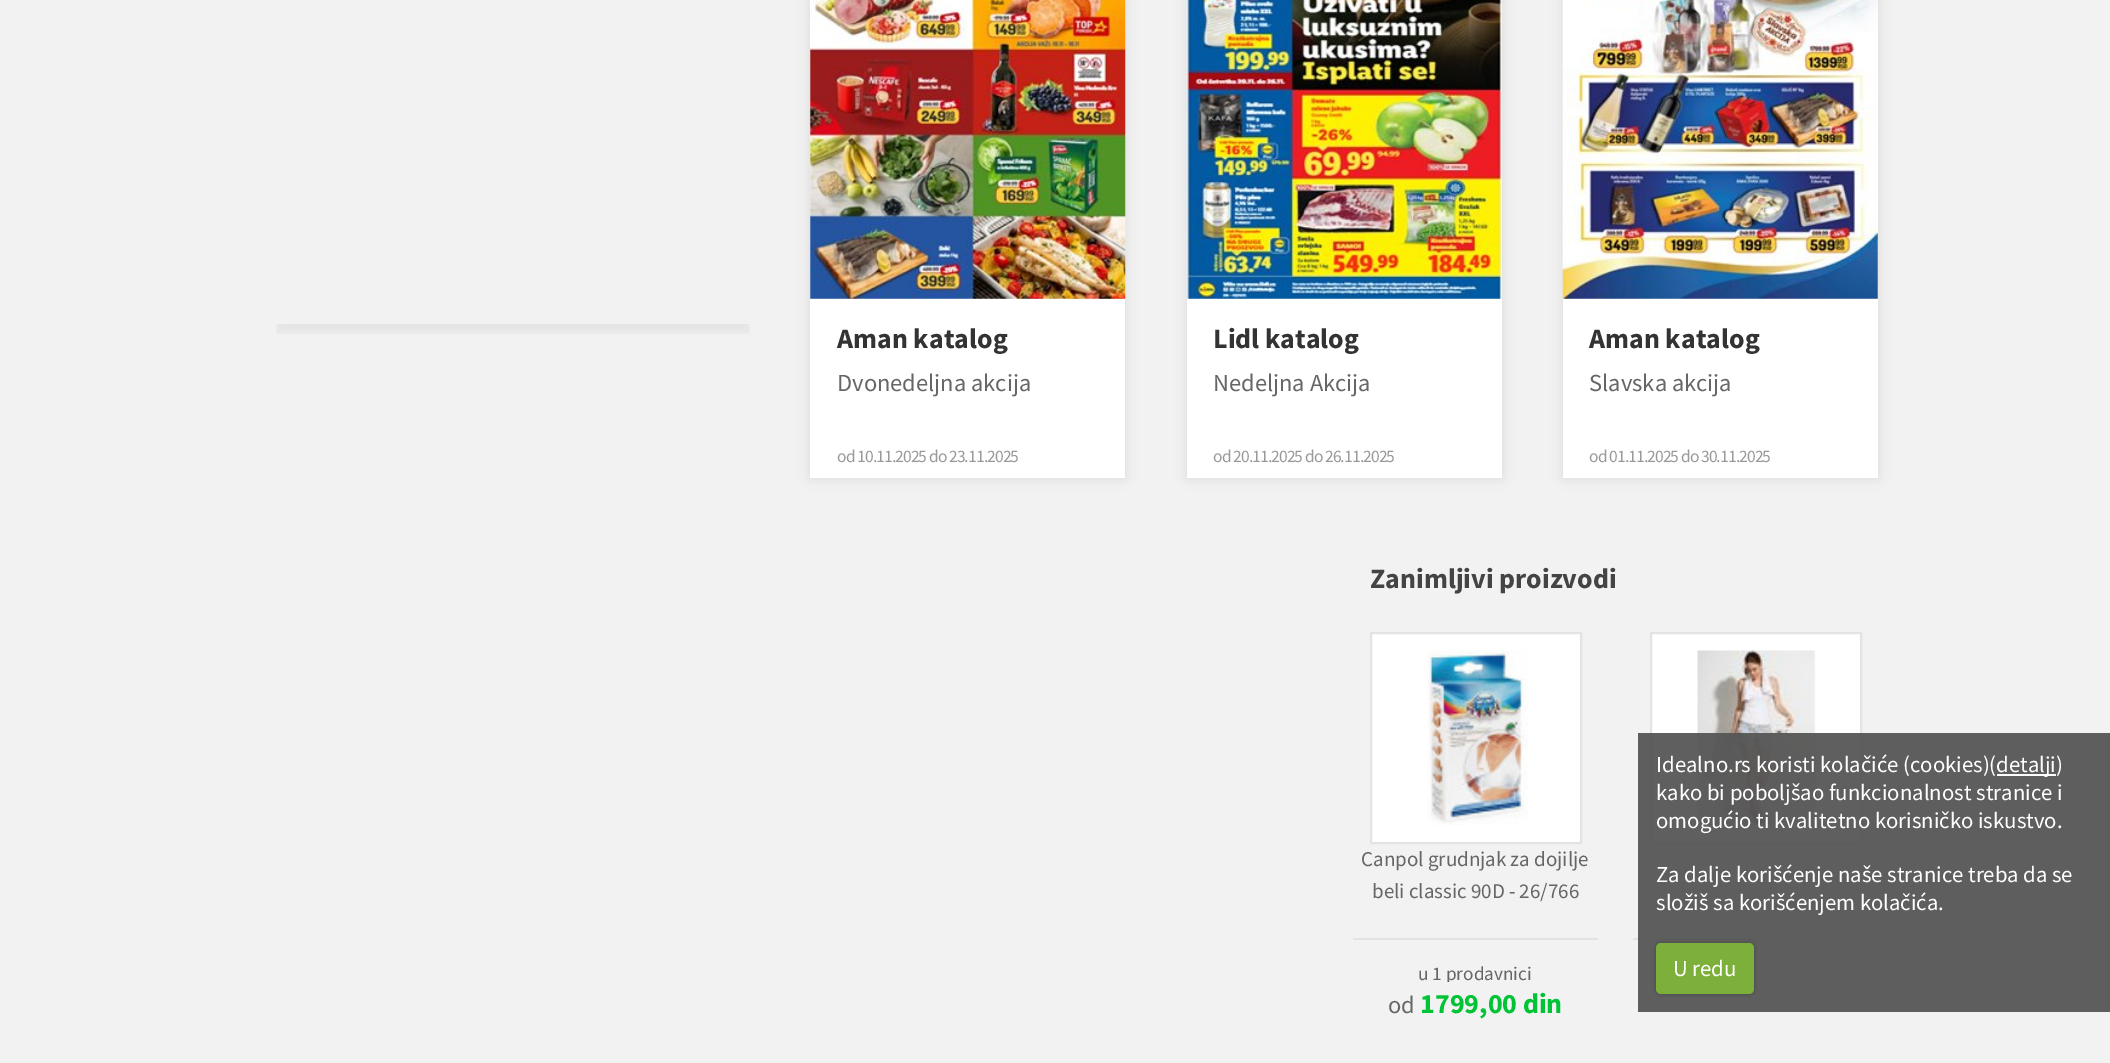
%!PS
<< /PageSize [2110 1063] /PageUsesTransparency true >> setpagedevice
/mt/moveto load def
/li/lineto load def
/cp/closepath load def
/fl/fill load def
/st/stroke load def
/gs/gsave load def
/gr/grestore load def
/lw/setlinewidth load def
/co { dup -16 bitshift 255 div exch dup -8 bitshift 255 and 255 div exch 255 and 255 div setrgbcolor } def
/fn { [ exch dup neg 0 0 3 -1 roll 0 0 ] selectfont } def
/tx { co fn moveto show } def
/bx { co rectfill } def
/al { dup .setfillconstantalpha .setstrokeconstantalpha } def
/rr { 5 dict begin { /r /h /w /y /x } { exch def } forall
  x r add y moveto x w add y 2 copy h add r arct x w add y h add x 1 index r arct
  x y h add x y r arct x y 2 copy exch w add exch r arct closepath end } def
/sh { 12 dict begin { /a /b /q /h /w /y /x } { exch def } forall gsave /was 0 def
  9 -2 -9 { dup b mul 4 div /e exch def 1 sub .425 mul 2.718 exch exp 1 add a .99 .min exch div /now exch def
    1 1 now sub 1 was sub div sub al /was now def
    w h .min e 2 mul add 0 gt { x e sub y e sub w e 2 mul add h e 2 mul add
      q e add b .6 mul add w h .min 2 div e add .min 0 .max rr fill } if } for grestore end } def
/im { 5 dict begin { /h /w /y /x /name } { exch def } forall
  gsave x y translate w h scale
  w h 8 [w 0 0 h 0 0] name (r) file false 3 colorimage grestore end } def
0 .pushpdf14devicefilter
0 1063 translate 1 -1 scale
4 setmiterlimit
0 0 2110 1063 16#F2F2F2 bx
gs
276 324 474 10 rectclip
16#000000 co
277 -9 472 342 0 4.5 .05 sh
gr
16#000000 co
810 -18 315 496 0 6 .1 sh
810 0 315 478 16#FFFFFF bx
(media/1.raw) 810 0 316 299 im
16#000000 co
1187 -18 315 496 0 6 .1 sh
1187 0 315 478 16#FFFFFF bx
(media/2.raw) 1186 0 316 299 im
16#000000 co
1563 -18 315 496 0 6 .1 sh
1563 0 315 478 16#FFFFFF bx
(media/3.raw) 1562 0 316 299 im
1371 633 mt 1581 633 li 1581 843 li 1371 843 li cp gs fl gr
16#E3E3E3 co
2 lw
st
(media/4.raw) 1427 650 101 175 im
1353 938 245 2 16#E3E3E3 bx
16#FFFFFF co
1651 633 mt 1861 633 li 1861 843 li 1651 843 li cp gs fl gr
16#E3E3E3 co
st
(media/5.raw) 1697 650 119 176 im
1633 938 245 2 16#E3E3E3 bx
0.95 al
1638 733 472 279 16#565656 bx
1 al
1997 774 59 2 16#FFFFFF bx
16#000000 co
1656 943 98 51 5 2 .25 sh
16#7DAF3B co
1656 943 98 51 5 rr fl
(Aman katalog) 837 348 /SourceSansPro-Bold 28 16#333333 tx
(Dvonedeljna akcija) 837 391 /SourceSansPro-Regular 24.5 16#666666 tx
/SourceSansPro-Regular 17.5 fn
16#999999 co
837 462 mt -.9 0 (od 10.11.2025 do 23.11.2025) ashow
(Lidl katalog) 1213 348 /SourceSansPro-Bold 28 16#333333 tx
(Nedeljna Akcija) 1213 391 /SourceSansPro-Regular 24.5 16#666666 tx
/SourceSansPro-Regular 17.5 fn
16#999999 co
1213 462 mt -.9 0 (od 20.11.2025 do 26.11.2025) ashow
(Aman katalog) 1589 348 /SourceSansPro-Bold 28 16#333333 tx
(Slavska akcija) 1589 391 /SourceSansPro-Regular 24.5 16#666666 tx
/SourceSansPro-Regular 17.5 fn
16#999999 co
1589 462 mt -.9 0 (od 01.11.2025 do 30.11.2025) ashow
(Zanimljivi proizvodi) 1370 588 /SourceSansPro-Bold 28 16#444444 tx
(Canpol grudnjak za dojilje) 1361 866 /SourceSansPro-Regular 21 16#666666 tx
(beli classic 90D - 26/766) 1372 898 /SourceSansPro-Regular 21 16#666666 tx
gs
1353 949 245 33 rectclip
(u 1 prodavnici) 1418 980 /SourceSansPro-Regular 19.25 16#666666 tx
gr
(od) 1388 1013 /SourceSansPro-Regular 24.5 16#666666 tx
(1799,00 din) 1420 1013 /SourceSansPro-Bold 28 16#00C435 tx
(Idealno.rs koristi kolačiće \(cookies\)\() 1656 772 /SourceSansPro-Regular 22.75 16#FFFFFF tx
(detalji\)) 1996 772 /SourceSansPro-Regular 22.75 16#FFFFFF tx
(kako bi poboljšao funkcionalnost stranice i) 1656 800 /SourceSansPro-Regular 22.75 16#FFFFFF tx
(omogućio ti kvalitetno korisničko iskustvo.) 1656 828 /SourceSansPro-Regular 22.75 16#FFFFFF tx
(Za dalje korišćenje naše stranice treba da se) 1656 882 /SourceSansPro-Regular 22.75 16#FFFFFF tx
(složiš sa korišćenjem kolačića.) 1656 910 /SourceSansPro-Regular 22.75 16#FFFFFF tx
(U redu) 1673 976 /SourceSansPro-Regular 22.75 16#FFFFFF tx
.poppdf14devicefilter showpage
